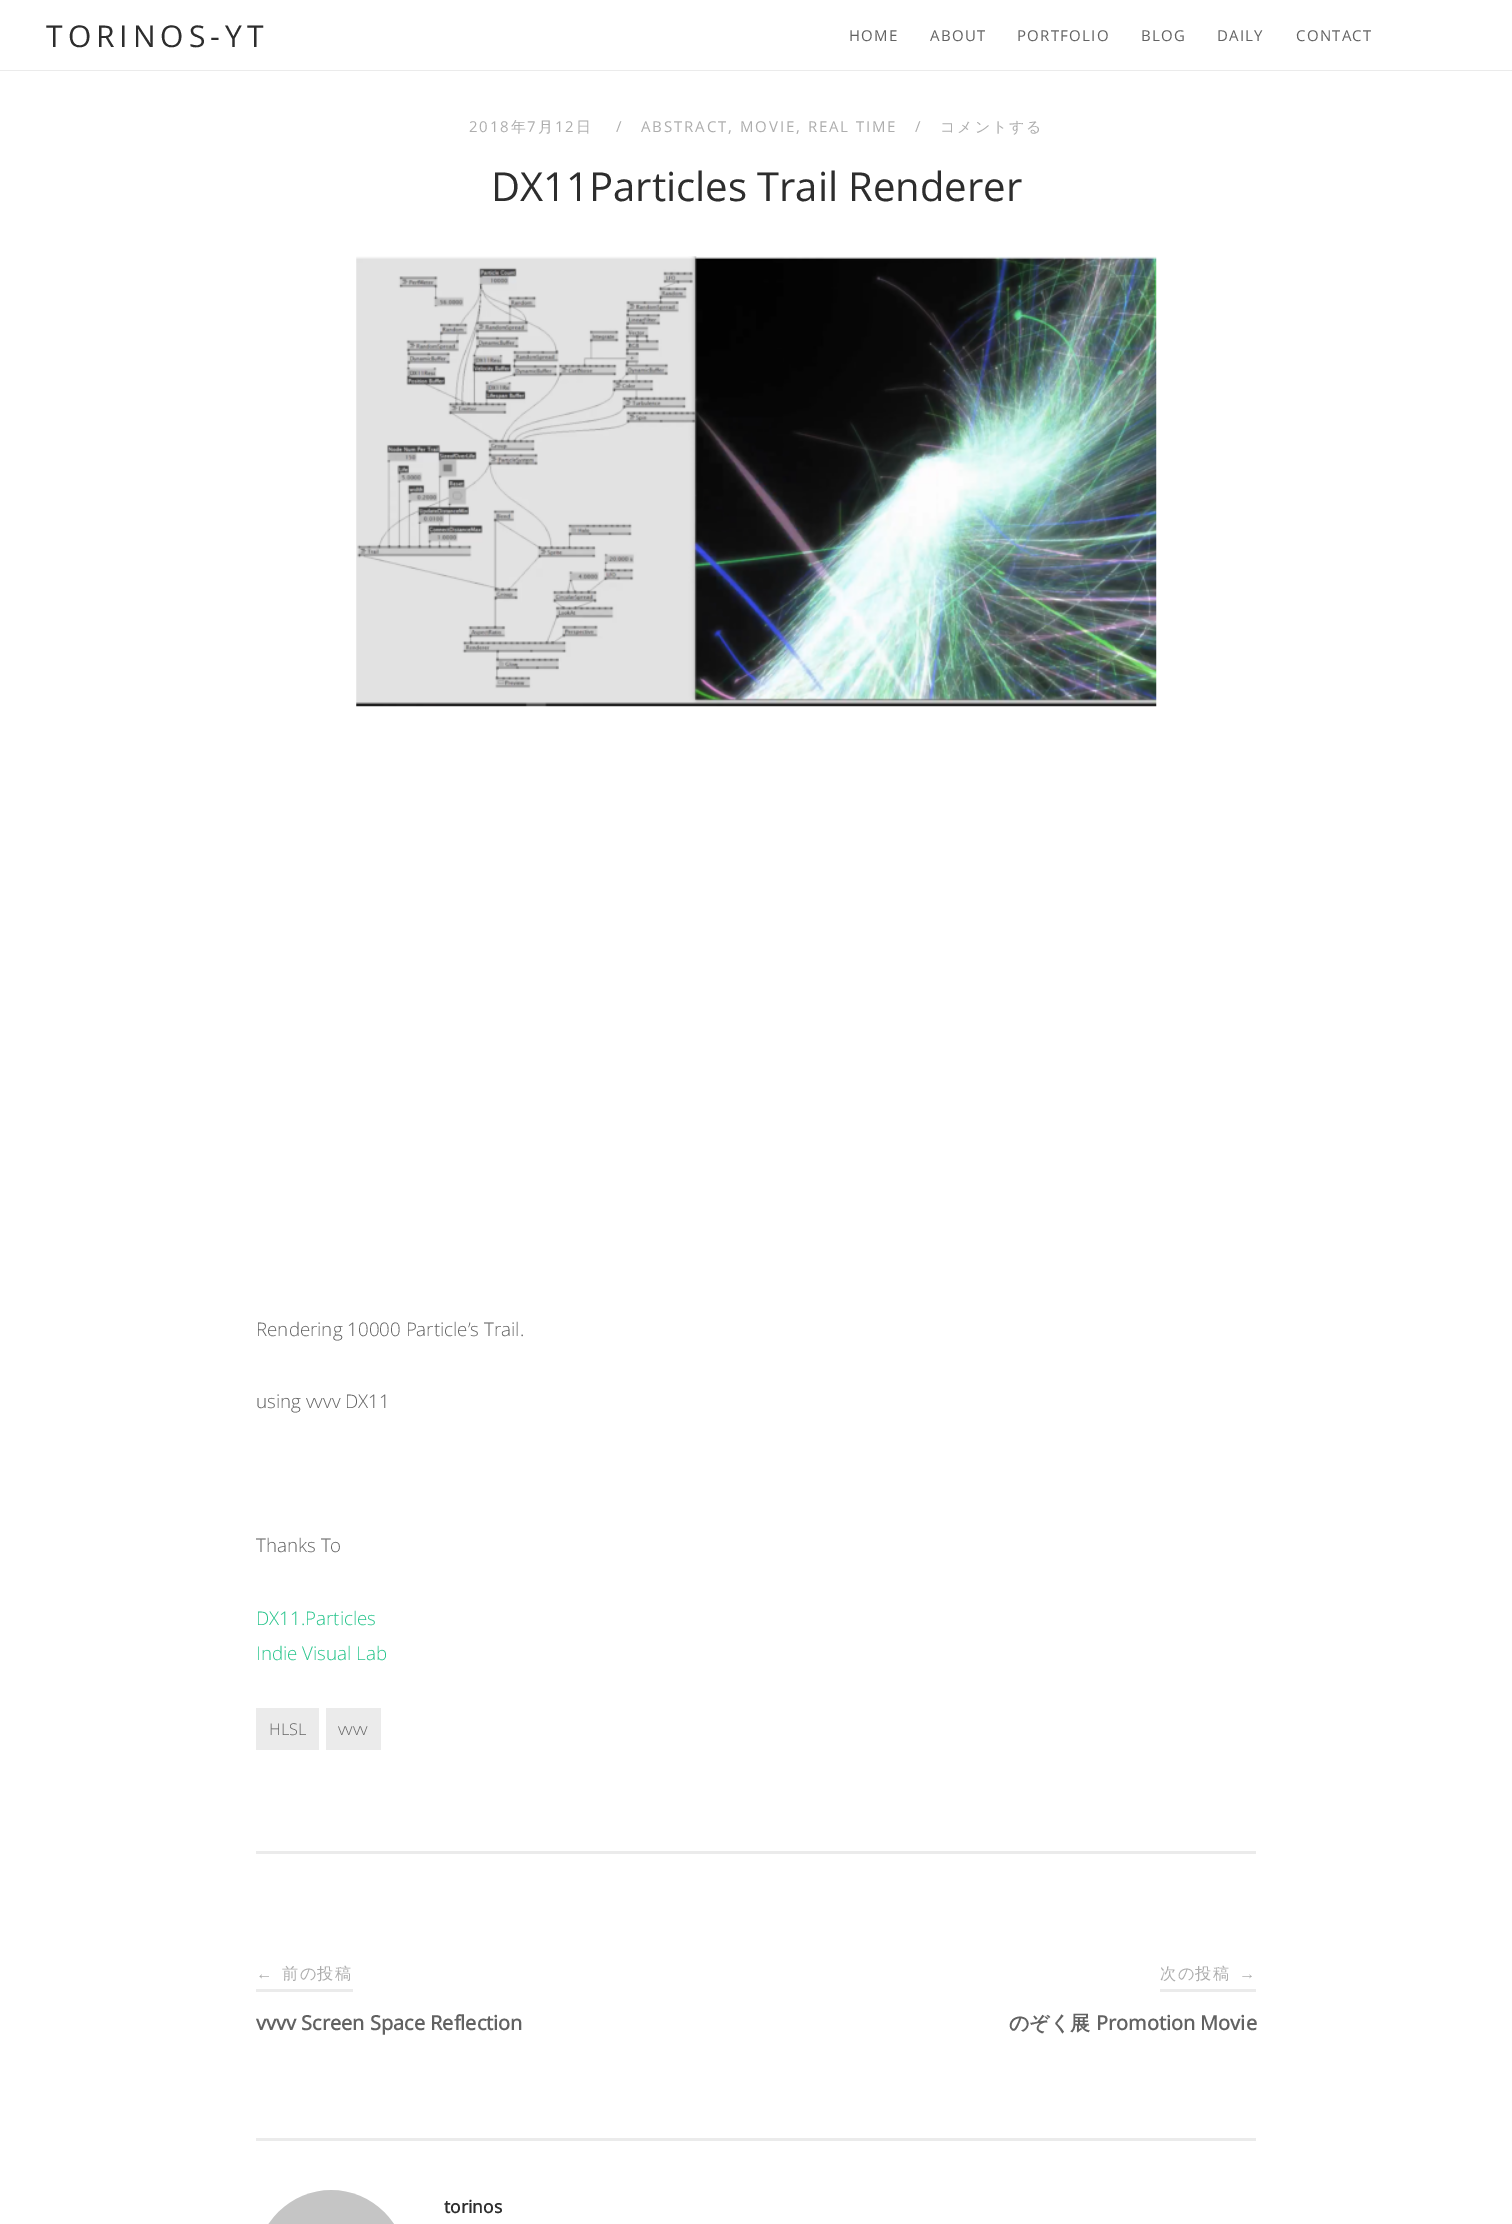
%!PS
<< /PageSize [1512 2224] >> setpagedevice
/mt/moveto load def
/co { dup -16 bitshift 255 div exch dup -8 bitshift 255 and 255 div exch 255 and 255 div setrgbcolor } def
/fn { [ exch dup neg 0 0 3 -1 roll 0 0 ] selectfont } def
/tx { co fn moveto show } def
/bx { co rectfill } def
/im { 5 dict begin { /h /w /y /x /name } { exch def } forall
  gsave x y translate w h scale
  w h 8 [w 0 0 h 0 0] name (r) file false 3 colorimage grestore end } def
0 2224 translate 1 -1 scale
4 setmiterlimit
0 0 1512 2224 16#FFFFFF bx
0 70 1512 1 16#EBEBEB bx
(media/1.raw) 356 256 801 451 im
256 1708 63 42 16#EBEBEB bx
326 1708 55 42 16#EBEBEB bx
256 1851 1000 3 16#EBEBEB bx
256 2138 1000 3 16#EBEBEB bx
256 1989 97 3 16#EBEBEB bx
1160 1989 96 3 16#EBEBEB bx
(media/2.raw) 268 2190 126 34 im
/OpenSans-Regular 30 fn
16#2D2D2D co
46 47 mt 5 0 (TORINOS-YT) ashow
/OpenSans-Regular 15 fn
16#626262 co
849 41 mt 1.25 0 (HOME) ashow
930 41 mt 1.25 0 (ABOUT) ashow
1017 41 mt 1.25 0 (PORTFOLIO) ashow
1141 41 mt 1.25 0 (BLOG) ashow
1217 41 mt 1.25 0 (DAILY) ashow
1296 41 mt 1.25 0 (CONTACT) ashow
16#ADADAD co
469 132 mt 1.9 0 (2018) ashow
/WenQuanYiZenHei-Medium 15 fn
511 132 mt 1.9 0 (年) ashow
/OpenSans-Regular 15 fn
527 132 mt 1.9 0 (7) ashow
/WenQuanYiZenHei-Medium 15 fn
538 132 mt 1.9 0 (月) ashow
/OpenSans-Regular 15 fn
555 132 mt 1.9 0 (12) ashow
/WenQuanYiZenHei-Medium 15 fn
576 132 mt 1.9 0 (日) ashow
/OpenSans-Regular 15 fn
616 132 mt 1.9 0 (/) ashow
641 132 mt 1.9 0 (ABSTRACT, MOVIE, REAL TIME) ashow
915 132 mt 1.9 0 (/) ashow
/WenQuanYiZenHei-Medium 15 fn
940 132 mt 1.9 0 (コメントする) ashow
(DX11Particles Trail Renderer) 491 201 /OpenSans-Regular 40 16#2D2D2D tx
(Rendering 10000 Particle’s Trail.) 256 1336 /OpenSans-Light 18.75 16#626262 tx
(using vvvv DX11) 256 1408 /OpenSans-Light 18.75 16#626262 tx
(Thanks To) 256 1552 /OpenSans-Light 18.75 16#626262 tx
(DX11.Particles) 256 1625 /OpenSans-Light 18.75 16#24C48A tx
(Indie Visual Lab) 256 1660 /OpenSans-Light 18.75 16#24C48A tx
(HLSL) 269 1735 /OpenSans-Light 16.25 16#626262 tx
(vvvv) 338 1735 /OpenSans-Light 16.25 16#626262 tx
/LiberationSans-Regular 16.25 fn
16#ADADAD co
256 1979 mt 1.25 0 (←) ashow
/WenQuanYiZenHei-Medium 16.25 fn
282 1979 mt 1.25 0 (前の投稿) ashow
(vvvv Screen Space Reflection) 256 2030 /OpenSans-Bold 20 16#626262 tx
/WenQuanYiZenHei-Medium 16.25 fn
16#ADADAD co
1160 1979 mt 1.25 0 (次の投稿) ashow
/LiberationSans-Regular 16.25 fn
1239 1979 mt 1.25 0 (→) ashow
(のぞく展) 1009 2030 /WenQuanYiZenHei-Bold 20 16#626262 tx
(Promotion Movie) 1096 2030 /OpenSans-Bold 20 16#626262 tx
(torinos) 444 2213 /OpenSans-Bold 17.5 16#2D2D2D tx
showpage
